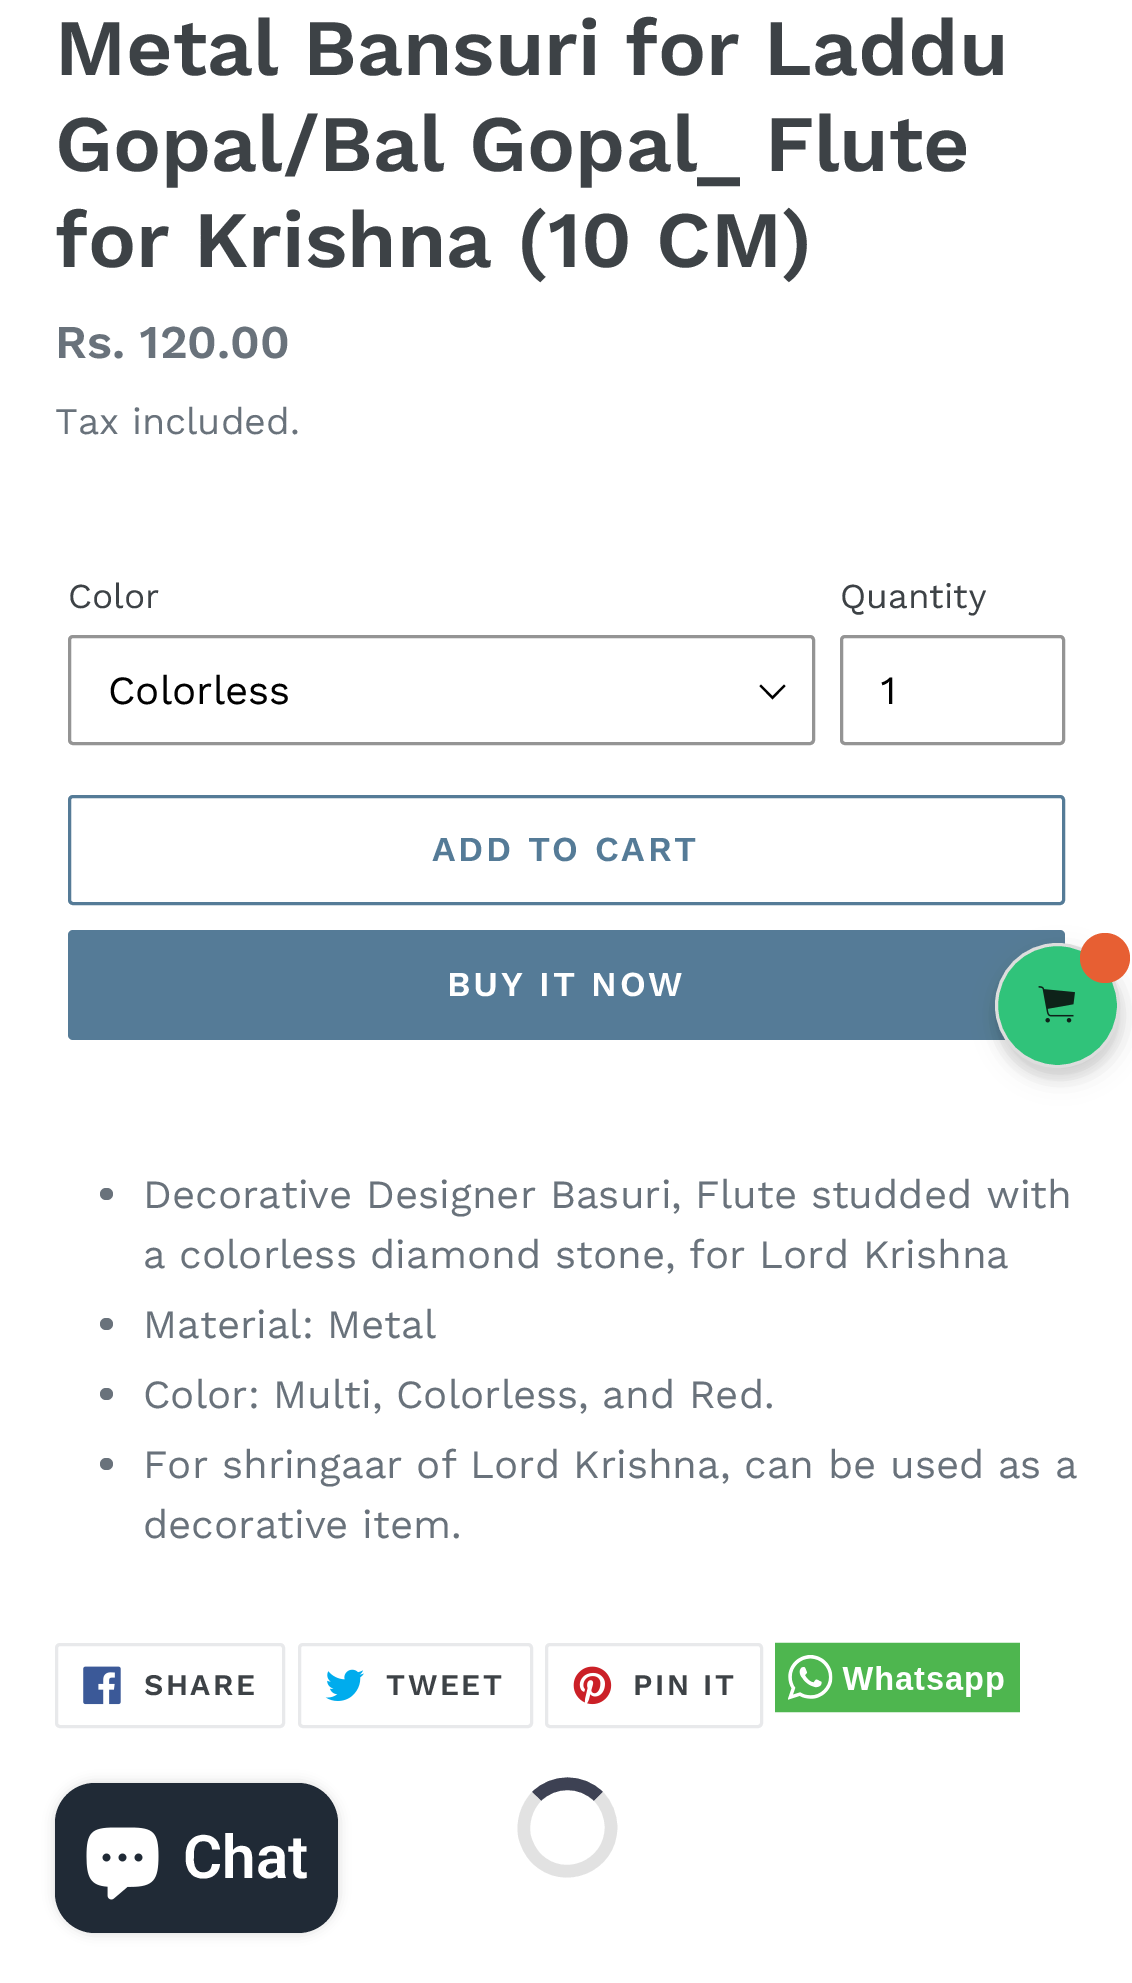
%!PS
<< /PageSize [1132 1983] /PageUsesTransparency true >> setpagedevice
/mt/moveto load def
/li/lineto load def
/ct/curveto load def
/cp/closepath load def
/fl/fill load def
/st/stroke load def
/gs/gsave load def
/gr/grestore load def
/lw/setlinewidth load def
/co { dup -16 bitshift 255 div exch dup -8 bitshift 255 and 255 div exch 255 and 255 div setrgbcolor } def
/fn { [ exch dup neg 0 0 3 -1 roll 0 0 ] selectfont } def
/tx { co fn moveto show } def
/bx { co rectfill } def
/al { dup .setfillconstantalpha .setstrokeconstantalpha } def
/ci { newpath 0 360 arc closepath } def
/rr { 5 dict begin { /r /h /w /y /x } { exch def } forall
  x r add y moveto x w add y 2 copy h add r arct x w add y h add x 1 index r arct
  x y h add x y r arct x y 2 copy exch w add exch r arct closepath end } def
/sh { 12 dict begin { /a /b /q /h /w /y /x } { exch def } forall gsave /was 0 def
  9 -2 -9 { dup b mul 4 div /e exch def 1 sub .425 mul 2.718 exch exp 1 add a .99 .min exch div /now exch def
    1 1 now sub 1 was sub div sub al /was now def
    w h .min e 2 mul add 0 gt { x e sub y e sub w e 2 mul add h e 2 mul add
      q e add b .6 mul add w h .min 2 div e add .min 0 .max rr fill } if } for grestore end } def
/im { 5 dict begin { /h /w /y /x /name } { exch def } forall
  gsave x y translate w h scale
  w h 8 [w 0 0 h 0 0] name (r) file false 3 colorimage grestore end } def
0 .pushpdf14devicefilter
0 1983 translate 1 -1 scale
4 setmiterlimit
0 0 1132 1983 16#FFFFFF bx
16#000000 co
772.5 699.5 mt 759.5 686 li 761 684.5 li 772.5 696 li 784 684.5 li 785.5 686 li cp fl
16#949494 co
3 lw
69.5 636.5 744 107 3.5 rr st
841.5 636.5 222 107 3.5 rr st
16#557B97 co
69.5 796.5 994 107 3.5 rr st
68 930 997 110 5 rr fl
16#69727B co
100 1188 13 12 6 rr fl
100 1318 13 12 6 rr fl
100 1388 13 12 6 rr fl
100 1458 13 12 6 rr fl
16#E8E9EB co
56.5 1644.5 227 82 3.5 rr st
(media/1.raw) 83 1666 38 39 im
299.5 1644.5 232 82 3.5 rr st
(media/2.raw) 325 1669 39 32 im
546.5 1644.5 215 82 3.5 rr st
(media/3.raw) 573 1666 39 39 im
(media/4.raw) 775 1642 245 71 im
16#3D4153 co
12.5 lw
536.5 1796.5 mt 553.5 1779.5 581.5 1779.5 598.5 1796.5 ct st
16#E2E2E2 co
598.5 1796.5 mt 606.5 1804.5 611 1816 611 1827.5 ct 611 1866 564 1886 536.5 1858.5 ct 530.5 1852.5 526.5 1844.5 524.5 1836 ct 522 1822 526.5 1807 536.5 1796.5 ct st
16#000000 co
995 953 125 125 62.5 5 .08 sh
998 953 125 125 62.5 12.5 .12 sh
16#30C37A co
1057.5 1005.5 61 ci gs fl gr
16#DDDDDD co
3 lw
st
16#E75F33 co
1105 958 25 ci fl
(media/5.raw) 1038 986 37 37 im
16#000000 co
55 1783 283 150 40 6 .15 sh
16#202A36 co
55 1783 283 150 40 rr fl
(media/6.raw) 86 1827 73 73 im
(Metal Bansuri for Laddu) 55 75 /WorkSans-SemiBold 80 16#3D4246 tx
(Gopal/Bal Gopal_ Flute) 55 171 /WorkSans-SemiBold 80 16#3D4246 tx
(for Krishna \(10 CM\)) 55 267 /WorkSans-SemiBold 80 16#3D4246 tx
(Rs. 120.00) 55 358 /WorkSans-SemiBold 47 16#69727B tx
(Tax included.) 55 434 /WorkSans-Regular 37.5 16#69727B tx
(Color) 68 608 /WorkSans-Regular 35 16#3D4246 tx
(Colorless) 108 704 /WorkSans-Regular 40 16#000000 tx
(Quantity) 840 608 /WorkSans-Regular 35 16#3D4246 tx
(1) 880 704 /WorkSans-Regular 40 16#000000 tx
/WorkSans-SemiBold 35 fn
16#557B97 co
432 861 mt 2.75 0 (ADD TO CART) ashow
16#FFFFFF co
447 996 mt 2.75 0 (BUY IT NOW) ashow
(Decorative Designer Basuri, Flute studded with) 143 1208 /WorkSans-Regular 40 16#69727B tx
(a colorless diamond stone, for Lord Krishna) 143 1268 /WorkSans-Regular 40 16#69727B tx
(Material: Metal) 143 1338 /WorkSans-Regular 40 16#69727B tx
(Color: Multi, Colorless, and Red.) 143 1408 /WorkSans-Regular 40 16#69727B tx
(For shringaar of Lord Krishna, can be used as a) 143 1478 /WorkSans-Regular 40 16#69727B tx
(decorative item.) 143 1538 /WorkSans-Regular 40 16#69727B tx
/WorkSans-SemiBold 30 fn
16#3D4246 co
144 1695 mt 2.5 0 (SHARE) ashow
386 1695 mt 2.5 0 (TWEET) ashow
633 1695 mt 2.5 0 (PIN IT) ashow
(Chat) 183 1878 /Roboto-SemiBold 60 16#FFFFFF tx
.poppdf14devicefilter showpage
